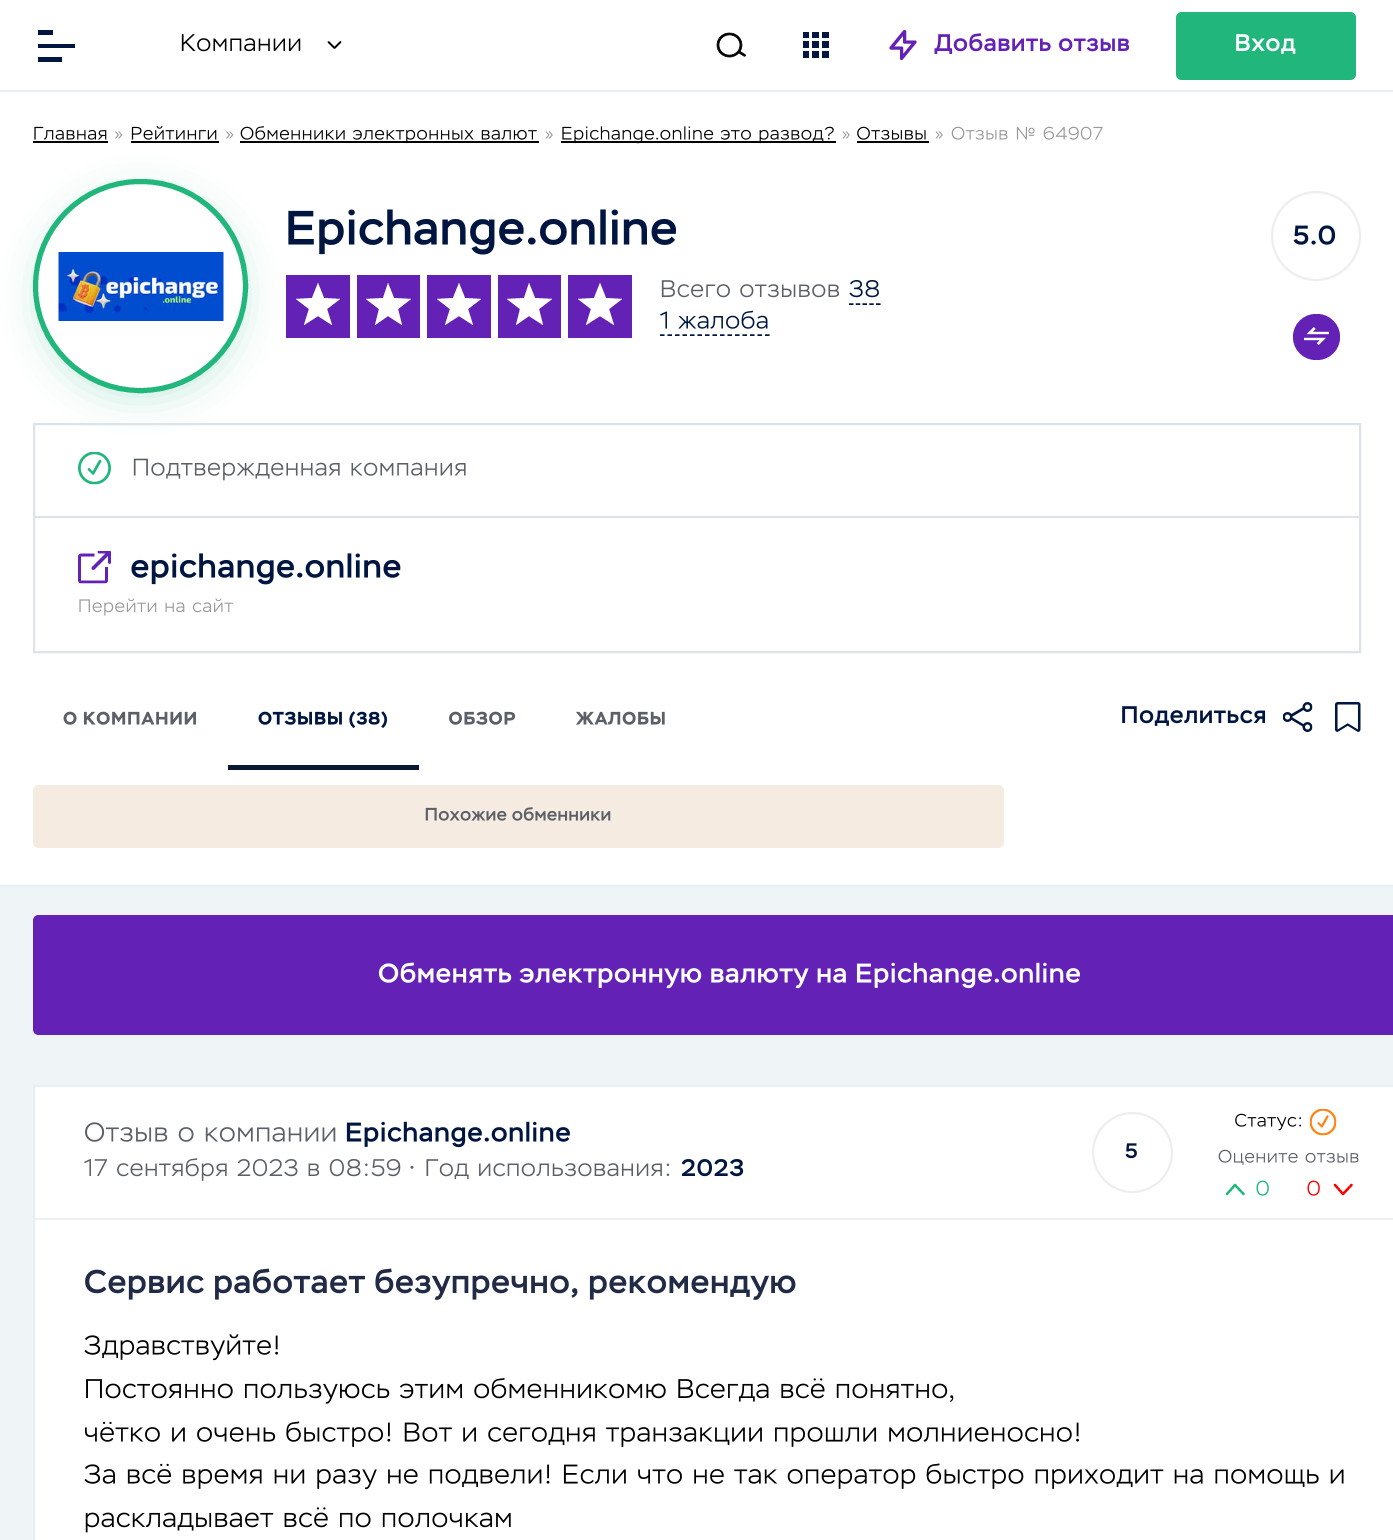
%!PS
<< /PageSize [1393 1540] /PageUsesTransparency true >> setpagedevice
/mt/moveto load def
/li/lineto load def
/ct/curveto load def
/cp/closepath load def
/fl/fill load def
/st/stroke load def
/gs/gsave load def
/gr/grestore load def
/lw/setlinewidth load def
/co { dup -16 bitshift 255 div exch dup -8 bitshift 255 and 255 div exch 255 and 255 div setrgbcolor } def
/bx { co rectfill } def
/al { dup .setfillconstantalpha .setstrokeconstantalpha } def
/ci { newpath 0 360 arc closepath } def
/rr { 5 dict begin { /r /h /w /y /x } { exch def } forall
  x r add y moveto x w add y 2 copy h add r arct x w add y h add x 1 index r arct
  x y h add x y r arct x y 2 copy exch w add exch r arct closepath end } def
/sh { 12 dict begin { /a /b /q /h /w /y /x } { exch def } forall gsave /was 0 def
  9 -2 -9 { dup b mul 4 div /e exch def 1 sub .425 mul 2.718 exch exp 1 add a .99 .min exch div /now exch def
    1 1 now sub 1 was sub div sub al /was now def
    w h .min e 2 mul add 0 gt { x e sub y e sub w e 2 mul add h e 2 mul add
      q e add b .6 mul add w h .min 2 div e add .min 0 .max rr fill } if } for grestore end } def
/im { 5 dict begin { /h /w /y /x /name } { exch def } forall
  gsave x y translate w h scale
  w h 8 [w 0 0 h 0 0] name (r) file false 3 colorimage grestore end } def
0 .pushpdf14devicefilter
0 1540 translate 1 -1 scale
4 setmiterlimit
0 0 1393 1540 16#FFFFFF bx
0 90 1393 2 16#E9F0F3 bx
38 30 15 5 16#001640 bx
38 44 37 4 16#001640 bx
38 57 24 5 16#001640 bx
(media/1.raw) 181 34 120 18 im
16#000000 co
1.5 lw
1 setlinecap
1 setlinejoin
328.5 42 mt 334.5 48 li 340.5 42 li st
(media/2.raw) 716 32 30 26 im
(media/3.raw) 803 32 26 26 im
16#6321B6 co
3 lw
904.5 31.5 mt 904.5 42 li 915 42 li 901.5 58.5 li 901.5 48 li 891 48 li cp st
(media/4.raw) 934 33 196 21 im
16#21B67C co
1176 12 180 68 6 rr fl
(media/5.raw) 1236 34 60 20 im
0 885 1393 2 16#E9F0F3 bx
(media/6.raw) 34 126 73 14 im
(media/7.raw) 115 131 8 8 im
(media/8.raw) 131 126 86 14 im
(media/7.raw) 226 131 8 8 im
240 141 299 2 16#000000 bx
(media/9.raw) 240 126 297 18 im
(media/10.raw) 545 131 8 8 im
561 141 275 2 16#000000 bx
(media/11.raw) 562 126 272 18 im
(media/10.raw) 842 131 8 8 im
(media/12.raw) 857 126 69 14 im
(media/10.raw) 935 131 8 8 im
(media/13.raw) 951 126 152 14 im
33 141 75 2 16#000000 bx
131 141 88 2 16#000000 bx
857 141 72 2 16#000000 bx
gs
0 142 mt 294 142 li 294 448 li 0 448 li cp 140 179 mt 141 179 li 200 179 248 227 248 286 ct 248 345 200 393 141 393 ct 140 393 li 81 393 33 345 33 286 ct 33 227 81 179 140 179 ct cp eoclip newpath
16#21B67B co
33 188 215 214 107 15 .2 sh
gr
(media/14.raw) 58 252 166 69 im
16#21B67B co
5 lw
0 setlinecap
0 setlinejoin
35.5 181.5 210 209 104.5 rr st
(media/15.raw) 288 209 389 46 im
286 275 64 63 16#6321B6 bx
16#FFFFFF co
318 283 mt 324 298 li 340 299 li 327 309 li 332 325 li 318 316 li 304 325 li 309 309 li 296 299 li 312 298 li cp fl
357 275 63 63 16#6321B6 bx
16#FFFFFF co
388 283 mt 394 298 li 411 299 li 398 309 li 402 325 li 388 316 li 375 325 li 379 309 li 366 299 li 383 298 li cp fl
427 275 64 63 16#6321B6 bx
16#FFFFFF co
459 283 mt 465 298 li 481 299 li 468 309 li 473 325 li 459 316 li 445 325 li 450 309 li 437 299 li 453 298 li cp fl
498 275 63 63 16#6321B6 bx
16#FFFFFF co
529 283 mt 535 298 li 552 299 li 539 309 li 543 325 li 529 316 li 516 325 li 520 309 li 507 299 li 524 298 li cp fl
568 275 64 63 16#6321B6 bx
16#FFFFFF co
600 283 mt 606 298 li 622 299 li 609 309 li 614 325 li 600 316 li 586 325 li 591 309 li 578 299 li 594 298 li cp fl
(media/16.raw) 661 280 179 18 im
(media/17.raw) 849 280 30 18 im
16#001640 co
1.5 lw
[4.5 2.25] 0 setdash
849 304 mt 880.5 304 li st
(media/18.raw) 660 310 108 19 im
[4.5 3] 0 setdash
660 335 mt 769.5 335 li st
16#EEEEEE co
2 lw
[] 0 setdash
1316 236 44 ci st
(media/19.raw) 1293 225 43 20 im
16#6321B6 co
1293 314 47 46 23 rr fl
(media/20.raw) 1304 327 25 18 im
16#DCE4E7 co
34 424 1326 228 rectstroke
(media/21.raw) 78 452 33 33 im
35 516 1324 2 16#DCE4E7 bx
(media/22.raw) 133 458 333 23 im
(media/23.raw) 78 551 33 33 im
(media/24.raw) 131 553 270 32 im
(media/25.raw) 79 598 155 18 im
(media/26.raw) 63 711 133 14 im
228 765 191 5 16#0B1831 bx
(media/27.raw) 258 711 130 17 im
(media/28.raw) 449 711 67 14 im
(media/29.raw) 576 711 89 14 im
16#F5EBE1 co
33 785 971 63 6 rr fl
(media/30.raw) 425 807 186 14 im
(media/31.raw) 1122 706 144 20 im
(media/32.raw) 1283 702 30 30 im
(media/33.raw) 1335 702 26 30 im
0 887 1393 653 16#EFF4F6 bx
16#6321B6 co
39 915 mt 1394 915 li 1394 1035 li 39 1035 li 35.5 1035 33 1032.5 33 1029 ct 33 921 li 33 917.5 35.5 915 39 915 ct cp fl
(media/34.raw) 378 962 702 27 im
16#FFFFFF co
34 1086 mt 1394 1086 li 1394 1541 li 34 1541 li cp gs fl gr
16#E9F0F3 co
st
35 1218 1358 2 16#EDF1F4 bx
(media/35.raw) 85 1122 251 20 im
(media/36.raw) 346 1121 224 27 im
(media/37.raw) 84 1158 317 23 im
(media/38.raw) 410 1159 260 21 im
(media/39.raw) 681 1159 63 18 im
16#EEEEEE co
1132.5 1152.5 39.5 ci st
(media/40.raw) 1125 1143 12 16 im
(media/41.raw) 1310 1109 27 27 im
(media/42.raw) 1235 1113 66 18 im
(media/43.raw) 1218 1149 141 16 im
16#21B67B co
2.2 lw
1 setlinecap
1 setlinejoin
1243.5 1194 mt 1235 1185 li 1227 1194 li st
(media/44.raw) 1256 1180 13 16 im
(media/45.raw) 1307 1180 13 16 im
16#FF0000 co
1335 1185 mt 1343 1194 li 1351.5 1185 li st
(media/46.raw) 85 1268 711 32 im
(media/47.raw) 84 1334 194 27 im
(media/48.raw) 86 1378 868 26 im
(media/49.raw) 85 1421 994 26 im
(media/50.raw) 84 1463 1260 27 im
(media/51.raw) 85 1507 426 26 im
.poppdf14devicefilter showpage
